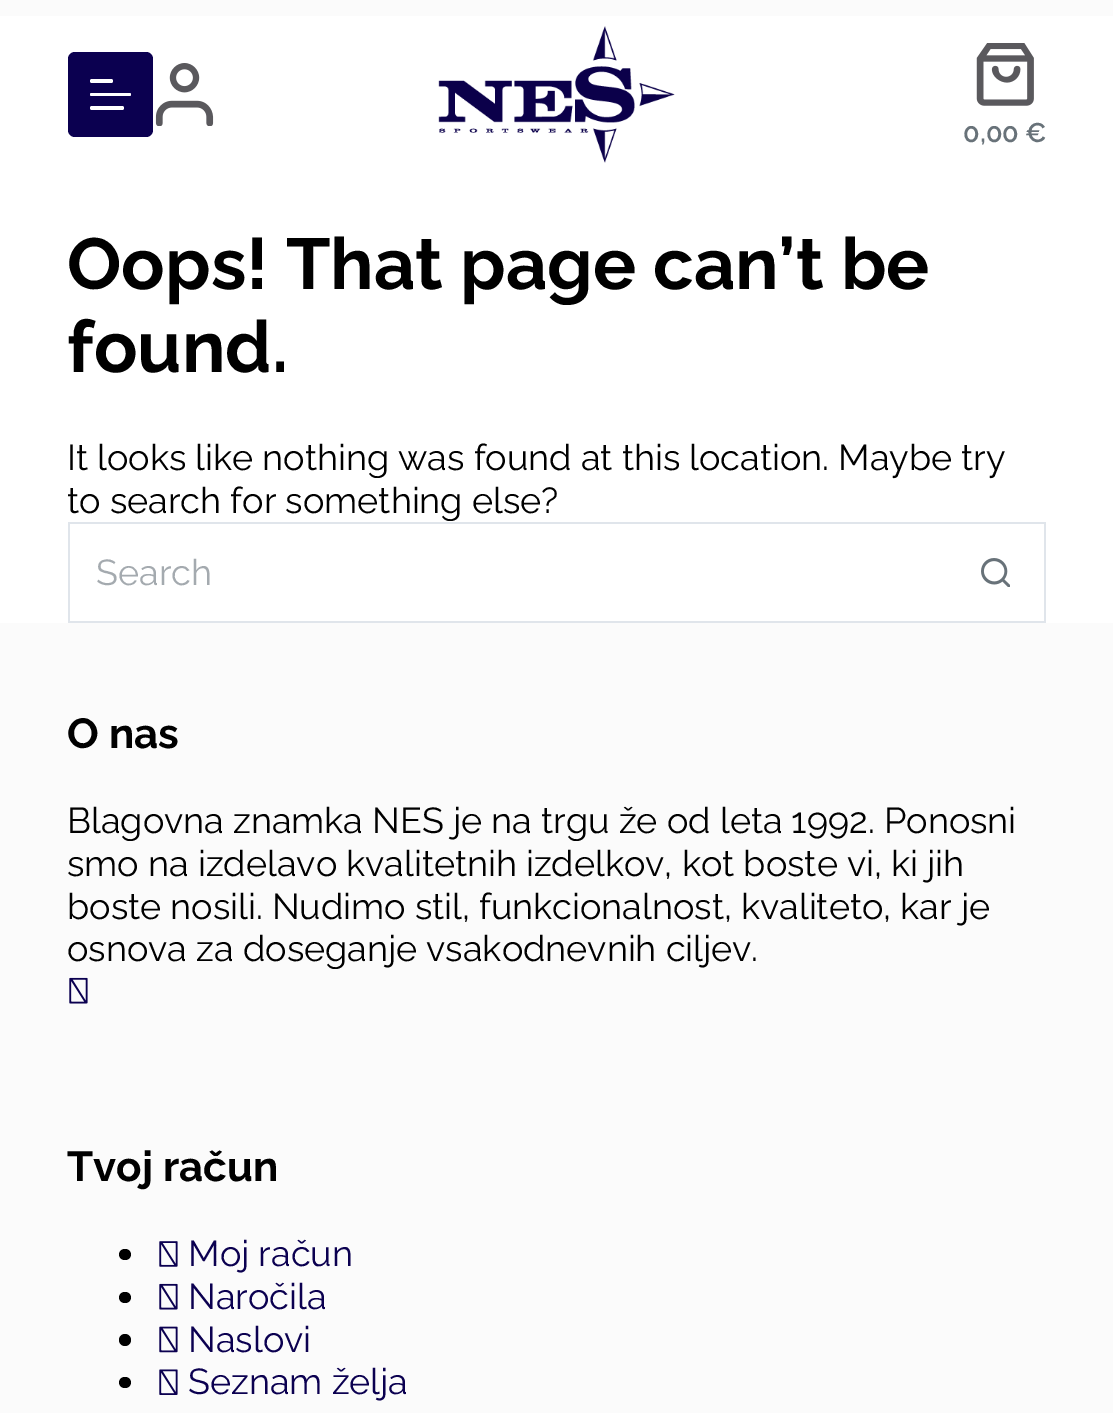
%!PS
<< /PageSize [1113 1413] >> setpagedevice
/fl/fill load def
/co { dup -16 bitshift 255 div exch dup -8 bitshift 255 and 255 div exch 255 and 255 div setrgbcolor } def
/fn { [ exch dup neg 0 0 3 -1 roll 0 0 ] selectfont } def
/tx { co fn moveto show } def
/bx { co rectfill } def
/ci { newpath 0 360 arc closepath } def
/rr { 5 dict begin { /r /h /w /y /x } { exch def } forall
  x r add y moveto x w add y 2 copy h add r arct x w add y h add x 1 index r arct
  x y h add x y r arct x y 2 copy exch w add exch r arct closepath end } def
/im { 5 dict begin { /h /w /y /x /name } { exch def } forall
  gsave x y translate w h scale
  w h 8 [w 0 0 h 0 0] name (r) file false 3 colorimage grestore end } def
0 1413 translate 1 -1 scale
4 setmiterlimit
0 0 1113 1413 16#FFFFFF bx
0 0 1113 16 16#FBFBFB bx
16#0B0050 co
68 52 85 85 7 rr fl
16#FFFFFF co
90 79 23 4 2 rr fl
90 93 41 3 1.5 rr fl
90 106 34 4 2 rr fl
(media/1.raw) 155 63 59 63 im
(media/2.raw) 438 26 237 137 im
(media/3.raw) 976 43 58 63 im
68 522 978 2 16#E0E5EB bx
68 621 877 2 16#E0E5EB bx
68 522 2 101 16#E0E5EB bx
1044 522 2 101 16#E0E5EB bx
945 621 101 2 16#E0E5EB bx
(media/4.raw) 981 558 29 29 im
0 623 1113 790 16#FBFBFB bx
(media/5.raw) 69 977 19 27 im
16#000000 co
119 1249 12 11 5.5 rr fl
(media/6.raw) 159 1241 19 26 im
119 1292 12 11 5.5 rr fl
(media/5.raw) 159 1283 19 27 im
125 1340 6 ci fl
(media/7.raw) 159 1326 19 27 im
119 1377 12 11 5.5 rr fl
(media/8.raw) 159 1369 19 26 im
(0,00 €) 963 142 /Raleway-SemiBold 27 16#687279 tx
(Oops! That page can’t be) 67 289 /Raleway-Bold 72 16#000000 tx
(found.) 67 372 /Raleway-Bold 72 16#000000 tx
(It looks like nothing was found at this location. Maybe try) 67 470 /Raleway-Regular 36 16#000000 tx
(to search for something else?) 67 513 /Raleway-Regular 36 16#000000 tx
(Search) 96 585 /Raleway-Regular 36 16#A4AAAF tx
(O nas) 67 748 /Raleway-Bold 42 16#000000 tx
(Blagovna znamka NES je na trgu že od leta 1992. Ponosni) 67 833 /Raleway-Regular 36 16#000000 tx
(smo na izdelavo kvalitetnih izdelkov, kot boste vi, ki jih) 67 876 /Raleway-Regular 36 16#000000 tx
(boste nosili. Nudimo stil, funkcionalnost, kvaliteto, kar je) 67 919 /Raleway-Regular 36 16#000000 tx
(osnova za doseganje vsakodnevnih ciljev.) 67 961 /Raleway-Regular 36 16#000000 tx
(Tvoj račun) 67 1181 /Raleway-Bold 42 16#000000 tx
(Moj račun) 188 1266 /Raleway-Regular 36 16#0B0050 tx
(Naročila) 188 1309 /Raleway-Regular 36 16#0B0050 tx
(Naslovi) 188 1352 /Raleway-Regular 36 16#0B0050 tx
(Seznam želja) 188 1394 /Raleway-Regular 36 16#0B0050 tx
showpage
